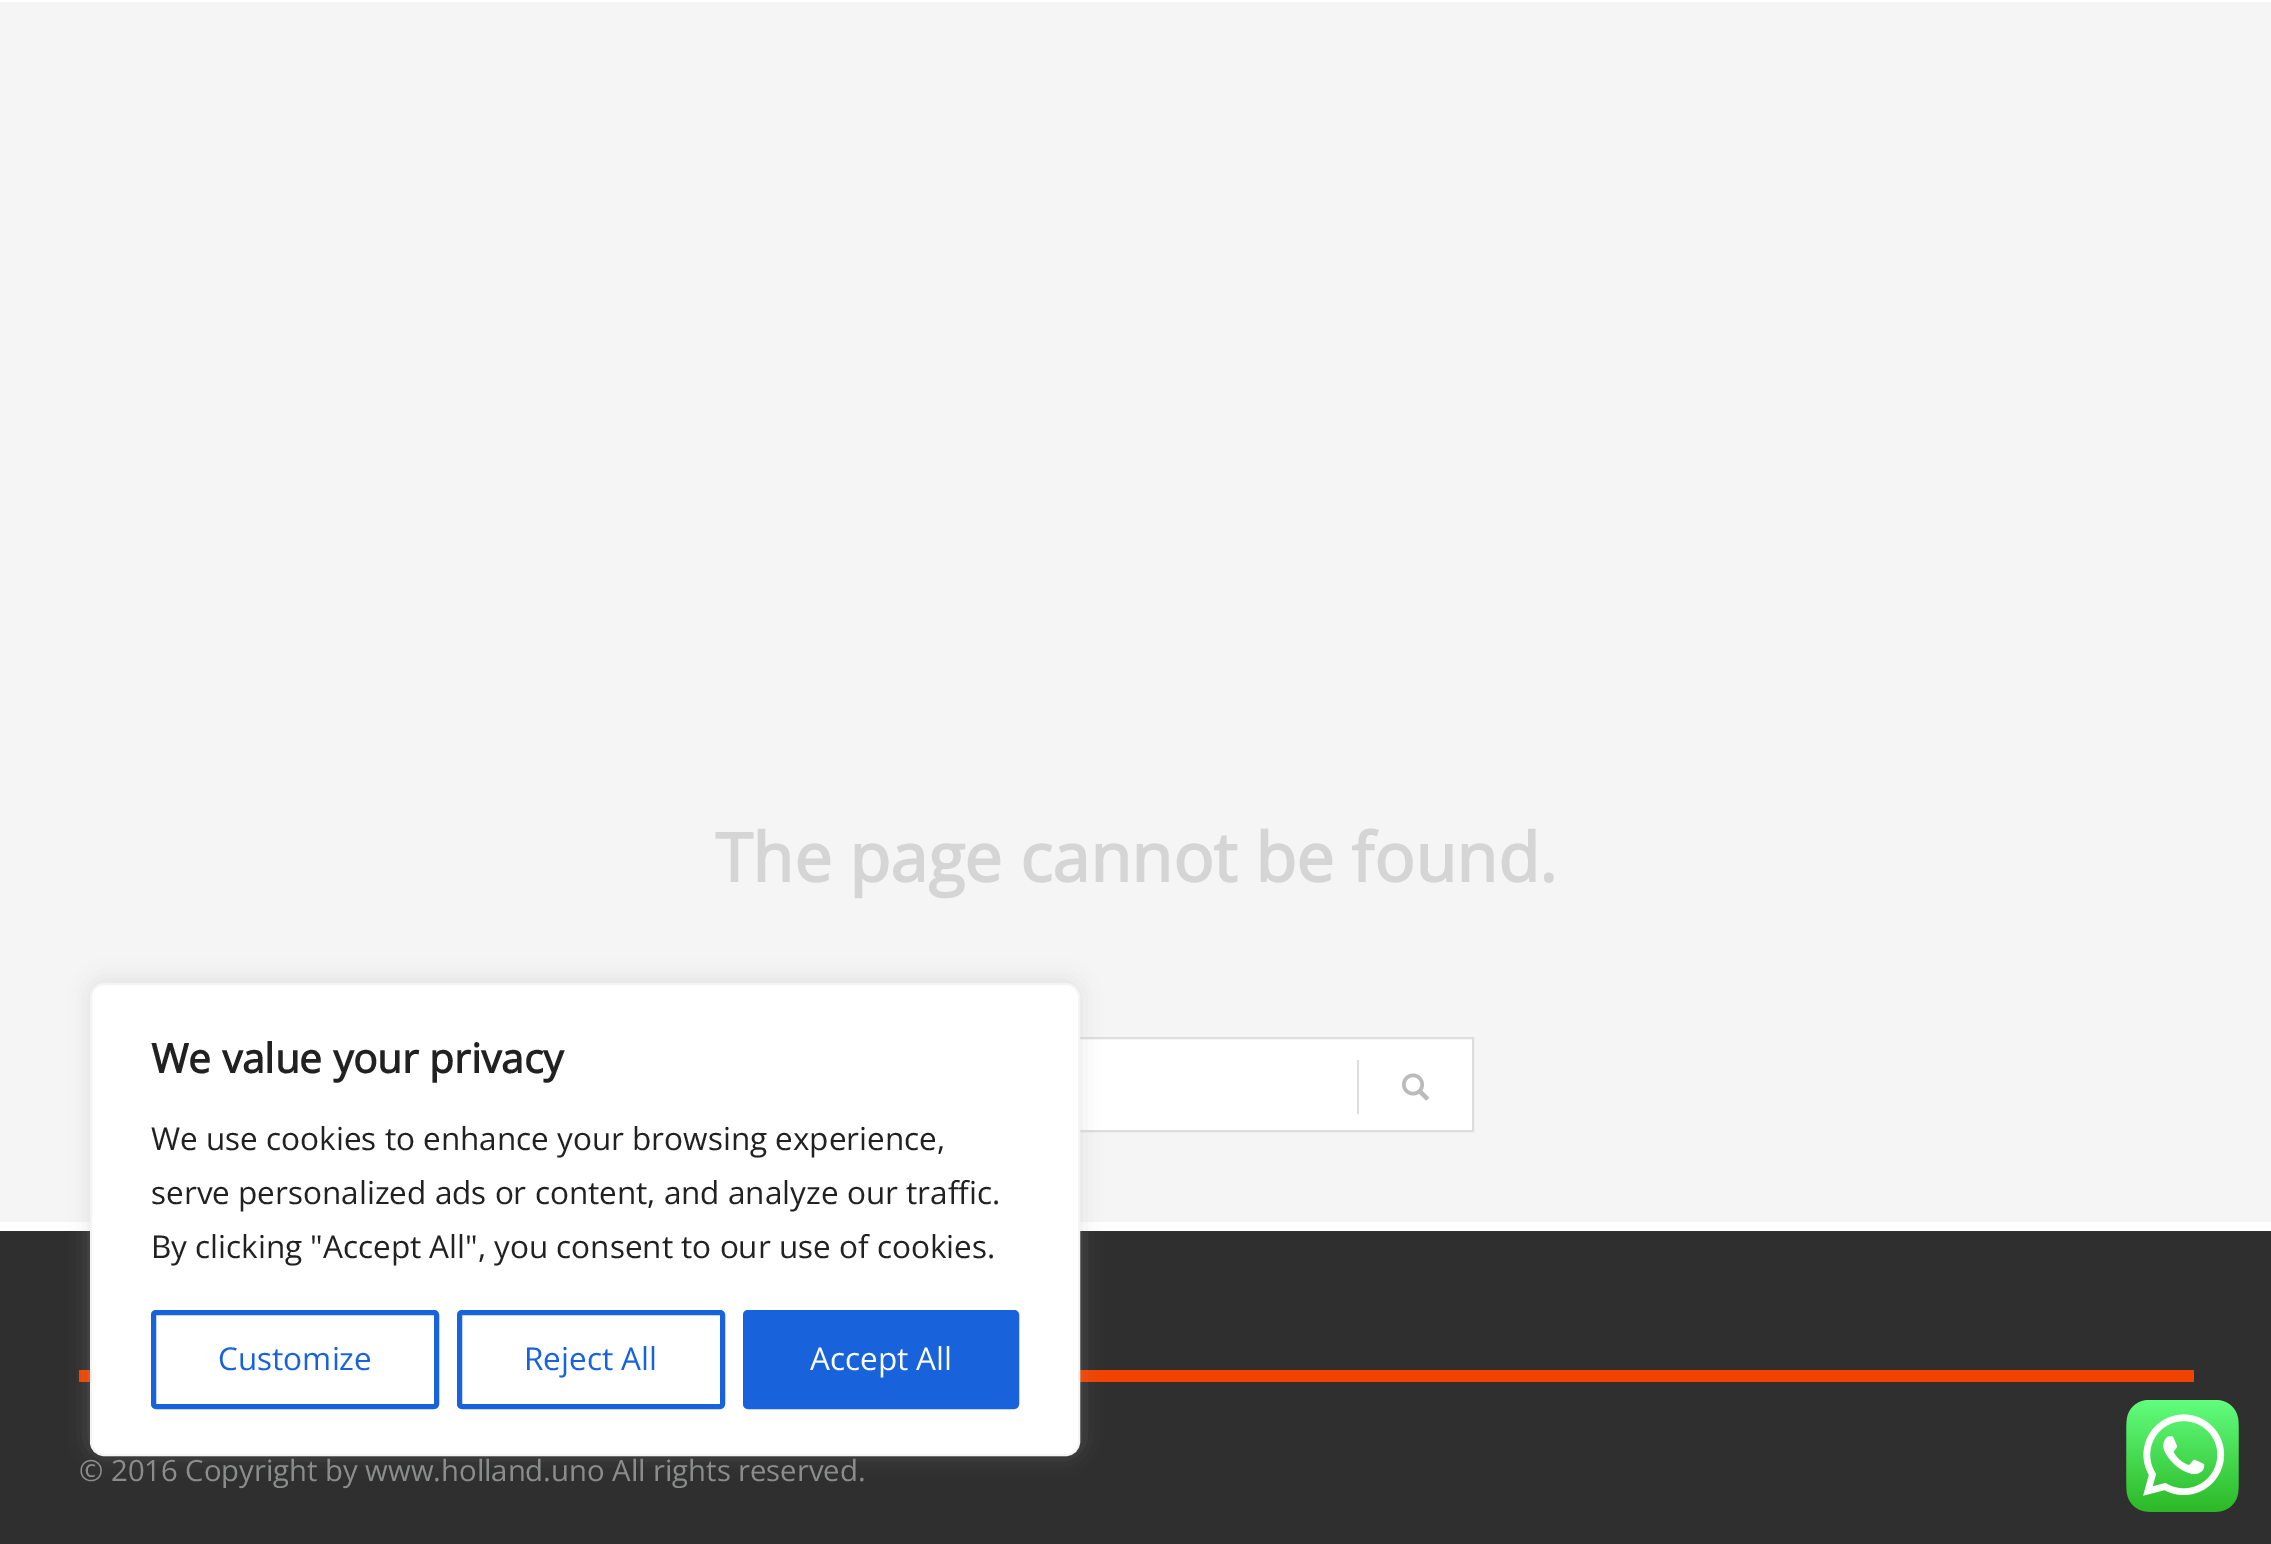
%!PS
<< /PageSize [2271 1544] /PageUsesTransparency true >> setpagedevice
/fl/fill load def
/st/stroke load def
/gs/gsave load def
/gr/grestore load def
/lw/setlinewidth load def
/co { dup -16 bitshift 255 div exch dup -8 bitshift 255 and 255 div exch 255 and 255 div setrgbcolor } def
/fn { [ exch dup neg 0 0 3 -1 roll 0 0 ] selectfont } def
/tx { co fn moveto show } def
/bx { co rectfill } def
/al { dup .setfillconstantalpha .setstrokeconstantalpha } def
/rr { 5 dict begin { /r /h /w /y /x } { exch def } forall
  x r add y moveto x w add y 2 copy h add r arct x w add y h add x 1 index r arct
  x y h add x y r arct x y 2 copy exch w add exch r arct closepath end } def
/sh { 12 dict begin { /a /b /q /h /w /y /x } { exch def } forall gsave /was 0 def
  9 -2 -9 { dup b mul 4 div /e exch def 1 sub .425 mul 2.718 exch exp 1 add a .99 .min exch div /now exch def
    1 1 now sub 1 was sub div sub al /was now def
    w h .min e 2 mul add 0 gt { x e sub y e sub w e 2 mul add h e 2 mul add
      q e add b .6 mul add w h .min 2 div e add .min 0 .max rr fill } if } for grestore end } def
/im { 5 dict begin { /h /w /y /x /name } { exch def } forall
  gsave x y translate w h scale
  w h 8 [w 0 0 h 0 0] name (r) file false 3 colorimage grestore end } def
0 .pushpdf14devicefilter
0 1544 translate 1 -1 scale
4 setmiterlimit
0 0 2271 1544 16#F5F5F5 bx
0 0 2271 2 16#FFFFFF bx
1080 1039 392 91 16#FFFFFF bx
16#DDDDDD co
2 lw
800 1038 673 93 rectstroke
1357 1060 2 54 16#DDDDDD bx
(media/1.raw) 1402 1073 27 28 im
0 1231 2271 313 16#2F2F2F bx
0 1222 2271 9 16#FFFFFF bx
79 1370 2115 12 16#F24202 bx
16#ACABAB co
90 981 990 473 14 11 .3 sh
16#FFFFFF co
91 984 988 471 13 rr gs fl gr
16#F4F4F4 co
st
16#1863DC co
5 lw
153.5 1312.5 283 94 2.5 rr st
459.5 1312.5 263 94 2.5 rr st
745.5 1312.5 271 94 2.5 rr gs fl gr
st
(media/2.raw) 2126 1400 113 112 im
(The page cannot be found.) 715 882 /OpenSans-Bold 67.5 16#D5D5D5 tx
(© 2016 Copyright by www.holland.uno All rights reserved.) 79 1481 /OpenSans-Regular 29.25 16#8B8C8D tx
(We value your privacy) 151 1073 /OpenSans-Bold 40.5 16#212121 tx
(We use cookies to enhance your browsing experience,) 151 1150 /OpenSans-Regular 31.5 16#212121 tx
(serve personalized ads or content, and analyze our traffic.) 151 1204 /OpenSans-Regular 31.5 16#212121 tx
(By clicking "Accept All", you consent to our use of cookies.) 151 1258 /OpenSans-Regular 31.5 16#212121 tx
(Customize) 218 1370 /OpenSans-Regular 31.5 16#1863DC tx
(Reject All) 524 1370 /OpenSans-Regular 31.5 16#1863DC tx
(Accept All) 810 1370 /OpenSans-Regular 31.5 16#FFFFFF tx
.poppdf14devicefilter showpage
